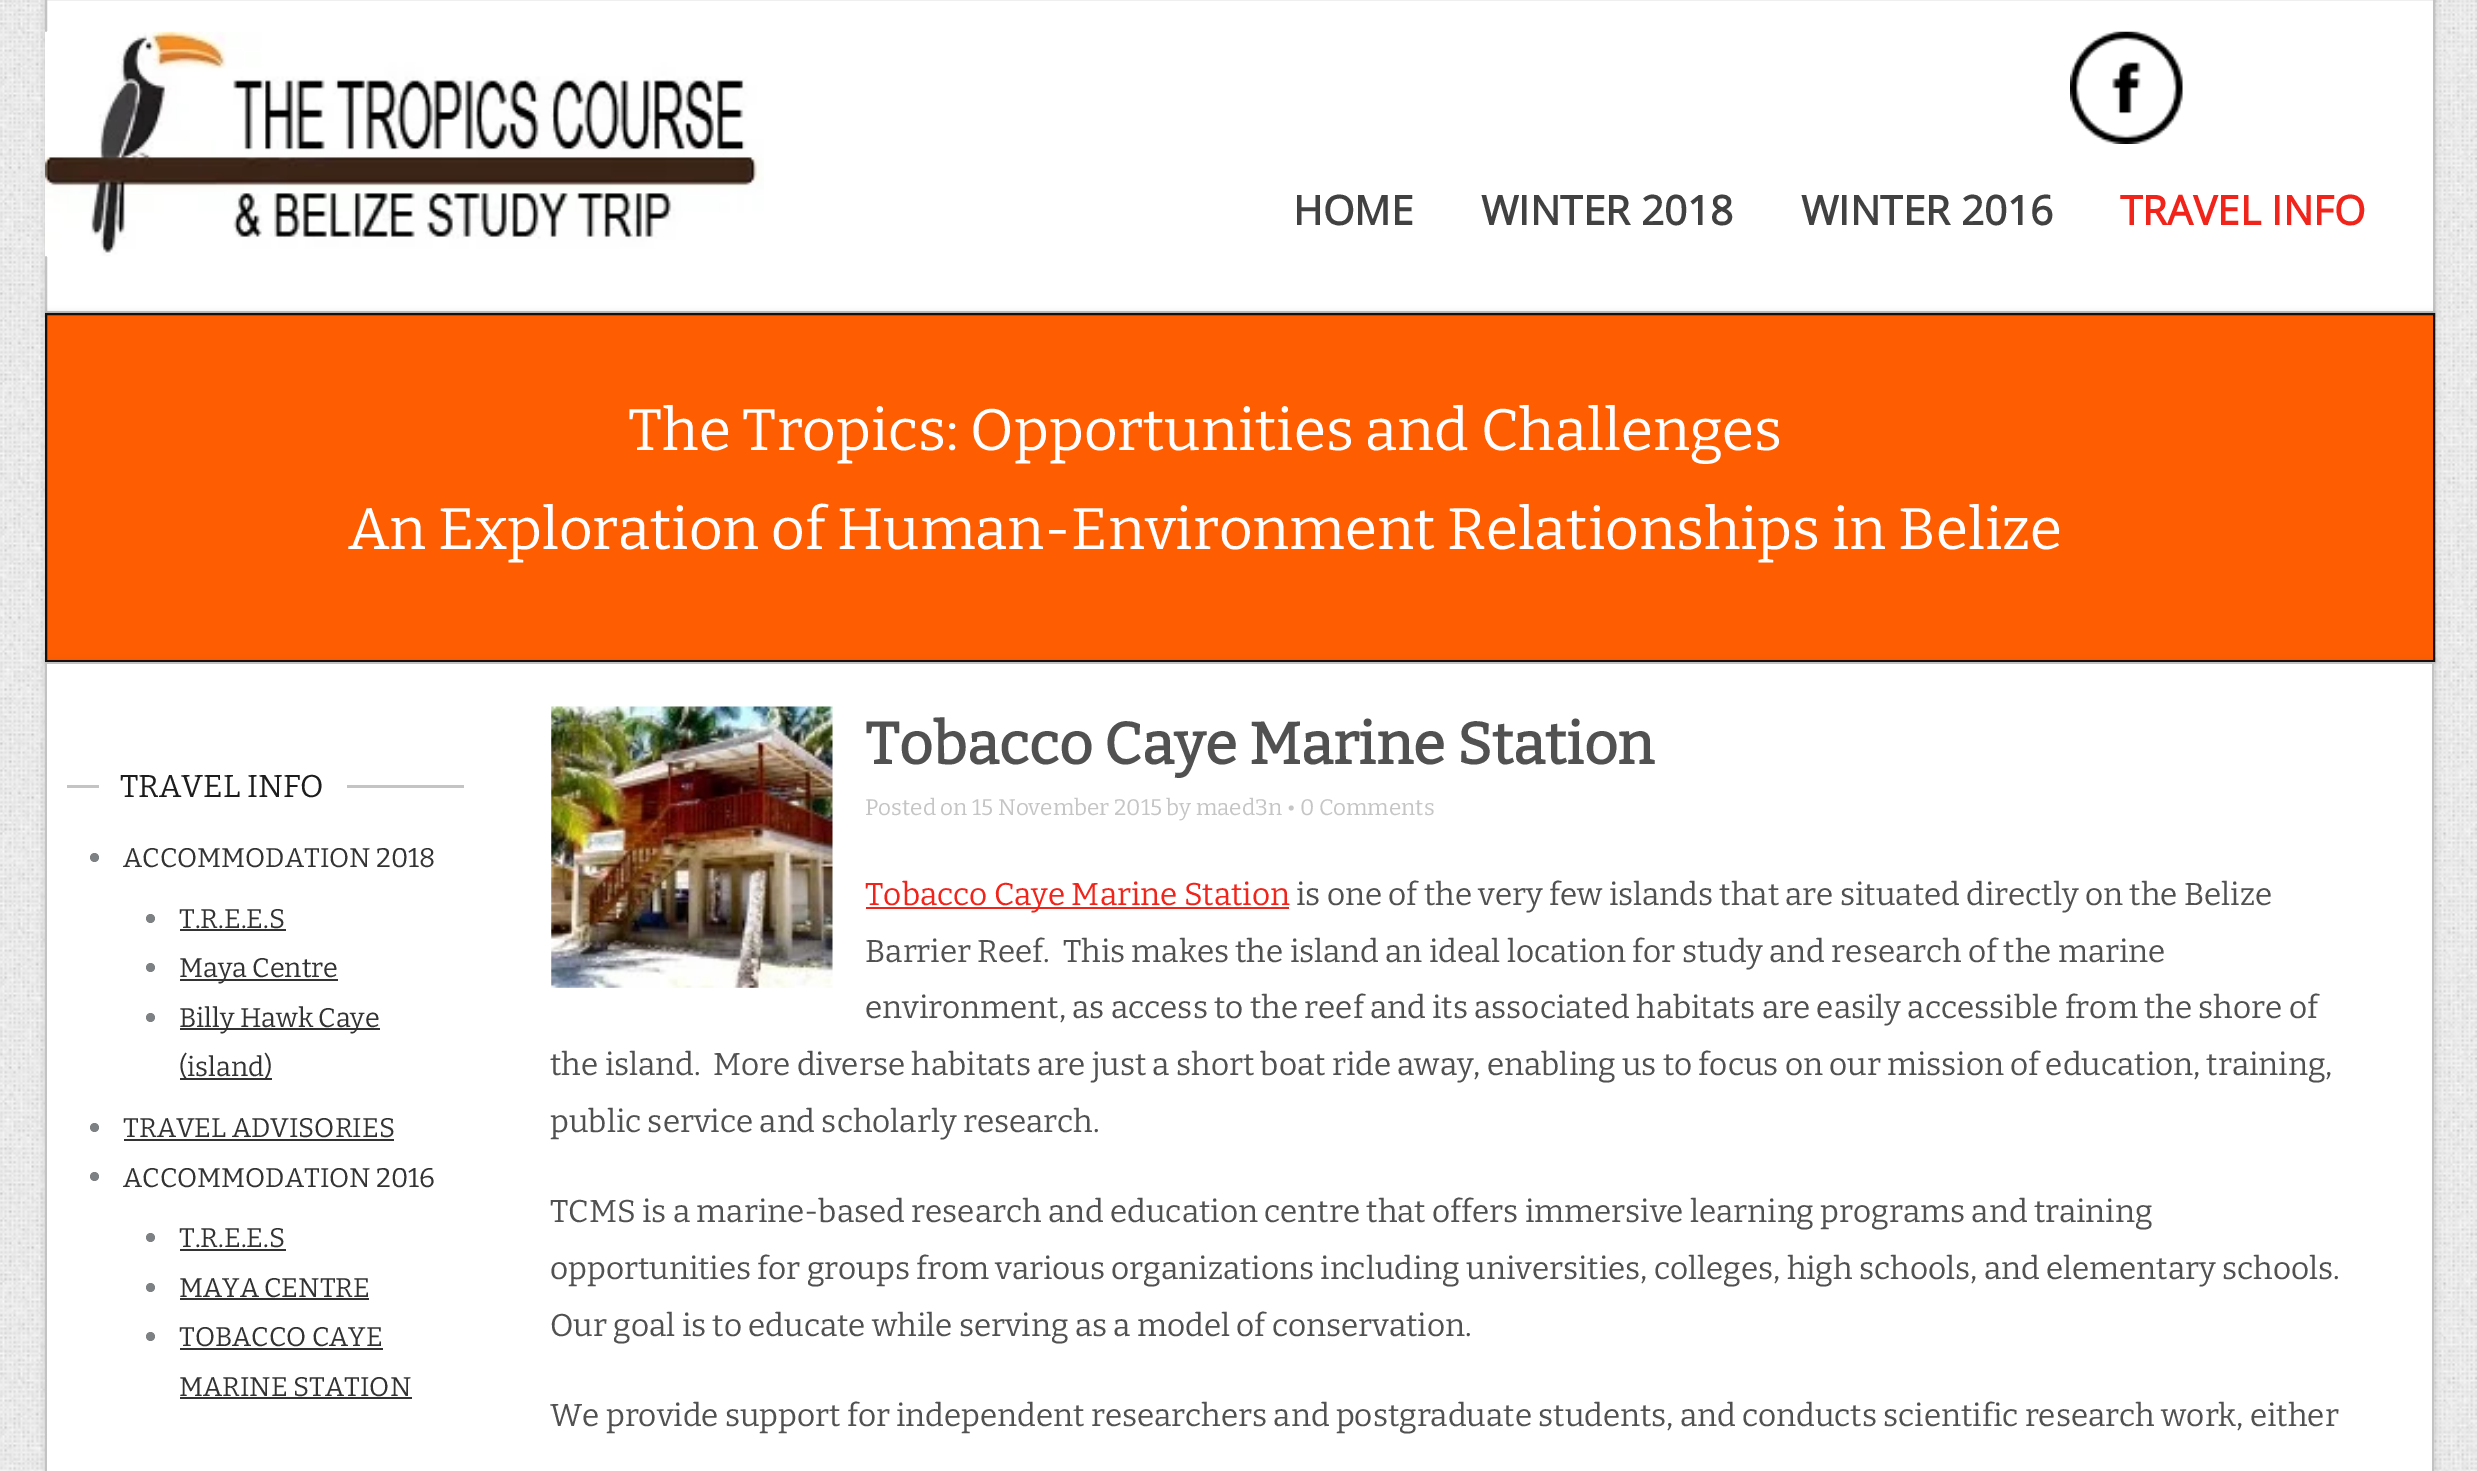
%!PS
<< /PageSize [2477 1471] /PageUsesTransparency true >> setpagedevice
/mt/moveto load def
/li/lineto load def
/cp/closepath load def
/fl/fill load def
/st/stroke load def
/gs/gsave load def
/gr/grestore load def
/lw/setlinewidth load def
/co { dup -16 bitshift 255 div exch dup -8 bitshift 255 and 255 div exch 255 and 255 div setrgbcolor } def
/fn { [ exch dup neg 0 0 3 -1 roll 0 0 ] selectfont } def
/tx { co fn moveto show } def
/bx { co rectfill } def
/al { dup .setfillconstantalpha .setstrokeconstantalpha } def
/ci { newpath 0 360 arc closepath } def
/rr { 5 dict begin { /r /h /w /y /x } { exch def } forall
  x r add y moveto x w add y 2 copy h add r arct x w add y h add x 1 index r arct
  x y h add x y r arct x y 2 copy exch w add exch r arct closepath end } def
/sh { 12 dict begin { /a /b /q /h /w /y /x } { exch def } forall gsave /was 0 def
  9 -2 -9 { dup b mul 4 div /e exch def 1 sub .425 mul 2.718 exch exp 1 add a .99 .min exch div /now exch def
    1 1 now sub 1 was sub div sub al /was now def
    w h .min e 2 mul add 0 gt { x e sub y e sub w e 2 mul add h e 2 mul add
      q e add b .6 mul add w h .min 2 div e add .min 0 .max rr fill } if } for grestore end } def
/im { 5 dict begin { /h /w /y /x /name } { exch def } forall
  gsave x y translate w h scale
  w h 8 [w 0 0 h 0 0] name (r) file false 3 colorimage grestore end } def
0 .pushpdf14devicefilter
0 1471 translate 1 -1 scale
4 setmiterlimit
0 0 2477 1471 16#FFFFFF bx
(media/1.raw) 0 0 2477 1471 im
16#000000 co
45 -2 2390 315 0 3.5 .14 sh
16#FFFFFF co
46 -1 mt 2434 -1 li 2434 312 li 46 312 li cp gs fl gr
16#C2C2C2 co
2 lw
st
(media/2.raw) 45 31 719 226 im
(media/3.raw) 2070 31 113 113 im
16#000000 co
45 313 2390 349 0 3.5 .14 sh
16#FE5D02 co
46 314 mt 2434 314 li 2434 661 li 46 661 li cp gs fl gr
16#14100D co
st
16#000000 co
45 662 2390 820 0 3.5 .14 sh
47 664 2385 807 16#FFFFFF bx
45 662 2390 2 16#C2C2C2 bx
2432 662 2 809 16#C2C2C2 bx
45 662 2 809 16#C2C2C2 bx
67 785 397 3 16#C4C4C4 bx
99 785 248 3 16#FFFFFF bx
16#7E8184 co
94.5 857.5 4.5 ci fl
150.5 918.5 4.5 ci fl
180 929 106 2 16#333333 bx
16#7E8184 co
150.5 967.5 4.5 ci fl
180 979 158 2 16#333333 bx
16#7E8184 co
150.5 1017.5 4.5 ci fl
180 1028 200 2 16#333333 bx
180 1078 92 2 16#333333 bx
16#7E8184 co
94.5 1127.5 4.5 ci fl
124 1139 270 2 16#333333 bx
16#7E8184 co
94.5 1176.5 4.5 ci fl
150.5 1237.5 4.5 ci fl
180 1249 106 2 16#333333 bx
16#7E8184 co
150.5 1287.5 4.5 ci fl
180 1298 189 2 16#333333 bx
16#7E8184 co
150.5 1336.5 4.5 ci fl
180 1348 203 2 16#333333 bx
180 1397 232 2 16#333333 bx
(media/4.raw) 551 706 282 282 im
866 907 423 2 16#F0241A bx
(HOME) 1293 225 /OpenSans-Bold 40.5 16#414141 tx
(WINTER 2018) 1481 225 /OpenSans-Bold 40.5 16#414141 tx
(WINTER 2016) 1801 225 /OpenSans-Bold 40.5 16#414141 tx
(TRAVEL INFO) 2120 225 /OpenSans-Bold 40.5 16#F0241A tx
(The Tropics: Opportunities and Challenges) 628 450 /Bitter-Thin 58.5 16#FFFEFE tx
(An Exploration of Human-Environment Relationships in Belize) 348 549 /Bitter-Thin 58.5 16#FFFEFE tx
(TRAVEL INFO) 120 797 /Bitter-Thin 31.5 16#1D1D1D tx
(ACCOMMODATION 2018) 123 867 /Bitter-Thin 27 16#333333 tx
(T.R.E.E.S) 179 928 /Bitter-Thin 27 16#333333 tx
(Maya Centre) 179 977 /Bitter-Thin 27 16#333333 tx
(Billy Hawk Caye) 179 1027 /Bitter-Thin 27 16#333333 tx
(\(island\)) 179 1076 /Bitter-Thin 27 16#333333 tx
(TRAVEL ADVISORIES) 123 1137 /Bitter-Thin 27 16#333333 tx
(ACCOMMODATION 2016) 123 1187 /Bitter-Thin 27 16#333333 tx
(T.R.E.E.S) 179 1247 /Bitter-Thin 27 16#333333 tx
(MAYA CENTRE) 179 1297 /Bitter-Thin 27 16#333333 tx
(TOBACCO CAYE) 179 1346 /Bitter-Thin 27 16#333333 tx
(MARINE STATION) 179 1396 /Bitter-Thin 27 16#333333 tx
(Tobacco Caye Marine Station) 865 764 /Bitter-Bold 58.5 16#515151 tx
(Posted on 15 November 2015 by maed3n • 0 Comments) 865 815 /Bitter-Thin 22.5 16#C5C5C5 tx
(Tobacco Caye Marine Station) 865 905 /Bitter-Thin 31.5 16#F0241A tx
(is one of the very few islands that are situated directly on the Belize) 1296 905 /Bitter-Thin 31.5 16#515151 tx
(Barrier Reef.  This makes the island an ideal location for study and research of the marine) 865 962 /Bitter-Thin 31.5 16#515151 tx
(environment, as access to the reef and its associated habitats are easily accessible from the shore of) 865 1018 /Bitter-Thin 31.5 16#515151 tx
(the island.  More diverse habitats are just a short boat ride away, enabling us to focus on our mission of education, training,) 550 1075 /Bitter-Thin 31.5 16#515151 tx
(public service and scholarly research.) 550 1132 /Bitter-Thin 31.5 16#515151 tx
(TCMS is a marine-based research and education centre that offers immersive learning programs and training) 550 1222 /Bitter-Thin 31.5 16#515151 tx
(opportunities for groups from various organizations including universities, colleges, high schools, and elementary schools.) 550 1279 /Bitter-Thin 31.5 16#515151 tx
(Our goal is to educate while serving as a model of conservation.) 550 1336 /Bitter-Thin 31.5 16#515151 tx
(We provide support for independent researchers and postgraduate students, and conducts scientific research work, either) 550 1426 /Bitter-Thin 31.5 16#515151 tx
.poppdf14devicefilter showpage
